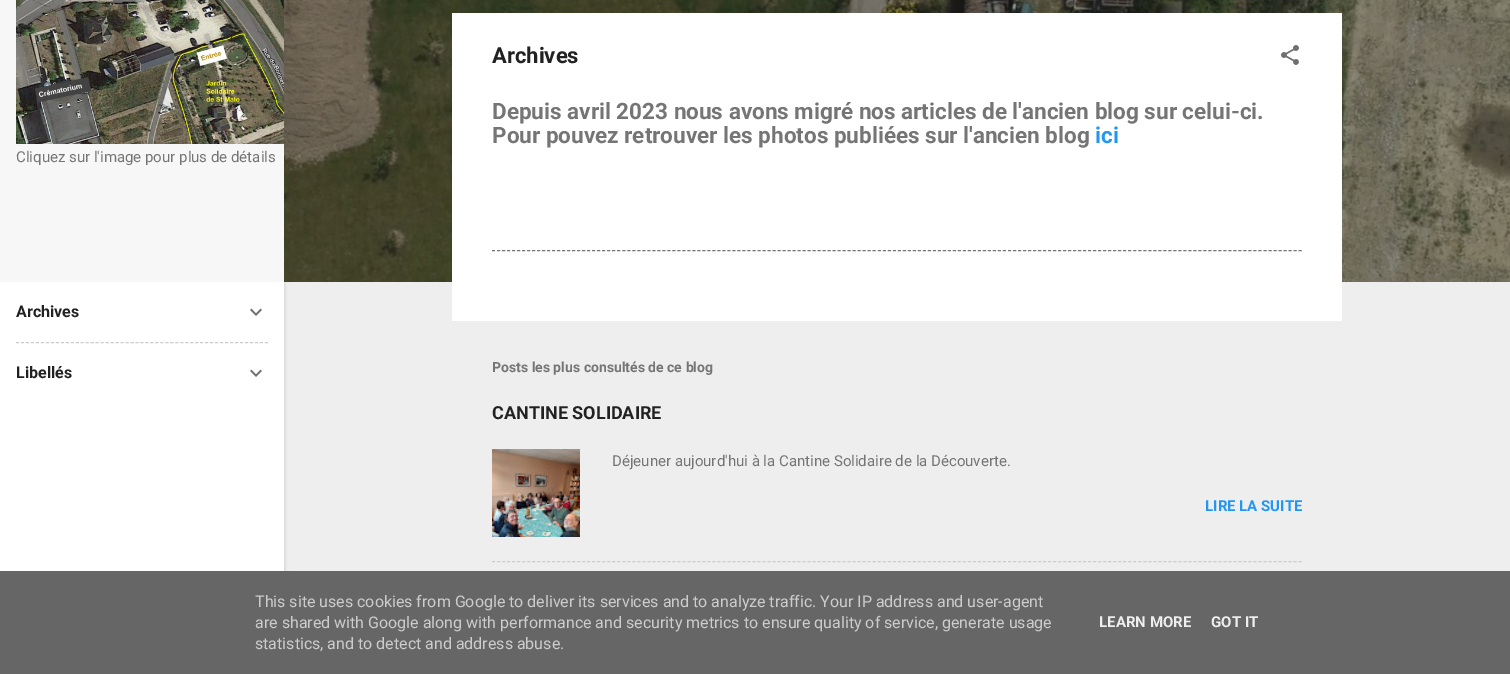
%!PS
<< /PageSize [1510 674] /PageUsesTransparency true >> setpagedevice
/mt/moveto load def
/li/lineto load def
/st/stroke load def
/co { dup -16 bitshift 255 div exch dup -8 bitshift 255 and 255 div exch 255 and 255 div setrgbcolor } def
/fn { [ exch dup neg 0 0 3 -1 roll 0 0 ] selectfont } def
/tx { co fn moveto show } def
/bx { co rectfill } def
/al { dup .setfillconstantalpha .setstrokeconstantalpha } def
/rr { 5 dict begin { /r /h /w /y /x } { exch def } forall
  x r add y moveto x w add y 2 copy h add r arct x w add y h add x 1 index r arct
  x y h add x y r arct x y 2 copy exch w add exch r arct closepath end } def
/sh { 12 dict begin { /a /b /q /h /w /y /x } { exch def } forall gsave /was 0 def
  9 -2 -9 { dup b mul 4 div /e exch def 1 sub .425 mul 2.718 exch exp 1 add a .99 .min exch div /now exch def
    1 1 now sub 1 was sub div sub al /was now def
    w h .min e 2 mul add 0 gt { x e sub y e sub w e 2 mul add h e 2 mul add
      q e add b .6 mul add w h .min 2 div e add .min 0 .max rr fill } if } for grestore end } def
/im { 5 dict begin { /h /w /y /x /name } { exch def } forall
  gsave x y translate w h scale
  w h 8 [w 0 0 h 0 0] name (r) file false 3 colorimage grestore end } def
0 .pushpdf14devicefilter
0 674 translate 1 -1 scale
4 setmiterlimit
0 0 1510 674 16#EEEEEE bx
(media/4.raw) 284 0 1226 282 im
16#000000 co
1 283 284 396 0 1.5 .1 sh
0 282 284 289 16#FFFFFF bx
0 0 284 282 16#F7F7F7 bx
(media/1.raw) 16 0 268 144 im
(media/2.raw) 250 308 12 8 im
16#CCCCCC co
[3 1.98] 0 setdash
16 342.5 mt 268 342.5 li st
(media/3.raw) 250 369 12 8 im
452 13 890 308 16#FFFFFF bx
(media/5.raw) 1281 45 18 20 im
16#757575 co
[3 2.01] 0 setdash
492 250.5 mt 1302 250.5 li st
(media/6.raw) 492 449 88 88 im
16#CCCCCC co
492 561.5 mt 1302 561.5 li st
0 571 1510 103 16#666666 bx
(Cliquez sur l'image pour plus de détails) 16 162 /Roboto-Regular 15 16#757575 tx
(Archives) 16 317 /Roboto-Bold 16 16#212121 tx
(Libellés) 16 378 /Roboto-Bold 16 16#212121 tx
(Archives) 492 63 /Roboto-Bold 22 16#212121 tx
(Depuis avril 2023 nous avons migré nos articles de l'ancien blog sur celui-ci.) 492 119 /Roboto-Bold 22.5 16#757575 tx
(Pour pouvez retrouver les photos publiées sur l'ancien blog) 492 143 /Roboto-Bold 22.5 16#757575 tx
(ici) 1095 143 /Roboto-Bold 22.5 16#2196F3 tx
(Posts les plus consultés de ce blog) 492 372 /Roboto-Bold 14 16#757575 tx
(CANTINE SOLIDAIRE) 492 419 /Roboto-Bold 18 16#212121 tx
(Déjeuner aujourd'hui à la Cantine Solidaire de la Découverte.) 612 466 /Roboto-Regular 15 16#757575 tx
(LIRE LA SUITE) 1205 511 /Roboto-Bold 15 16#2196F3 tx
(This site uses cookies from Google to deliver its services and to analyze traffic. Your IP address and user-agent) 255 607 /Roboto-Regular 16 16#CCCCCC tx
(are shared with Google along with performance and security metrics to ensure quality of service, generate usage) 255 628 /Roboto-Regular 16 16#CCCCCC tx
(statistics, and to detect and address abuse.) 255 649 /Roboto-Regular 16 16#CCCCCC tx
(LEARN MORE) 1099 627 /Roboto-Bold 15 16#EEEEEE tx
(GOT IT) 1211 627 /Roboto-Bold 15 16#EEEEEE tx
.poppdf14devicefilter showpage
